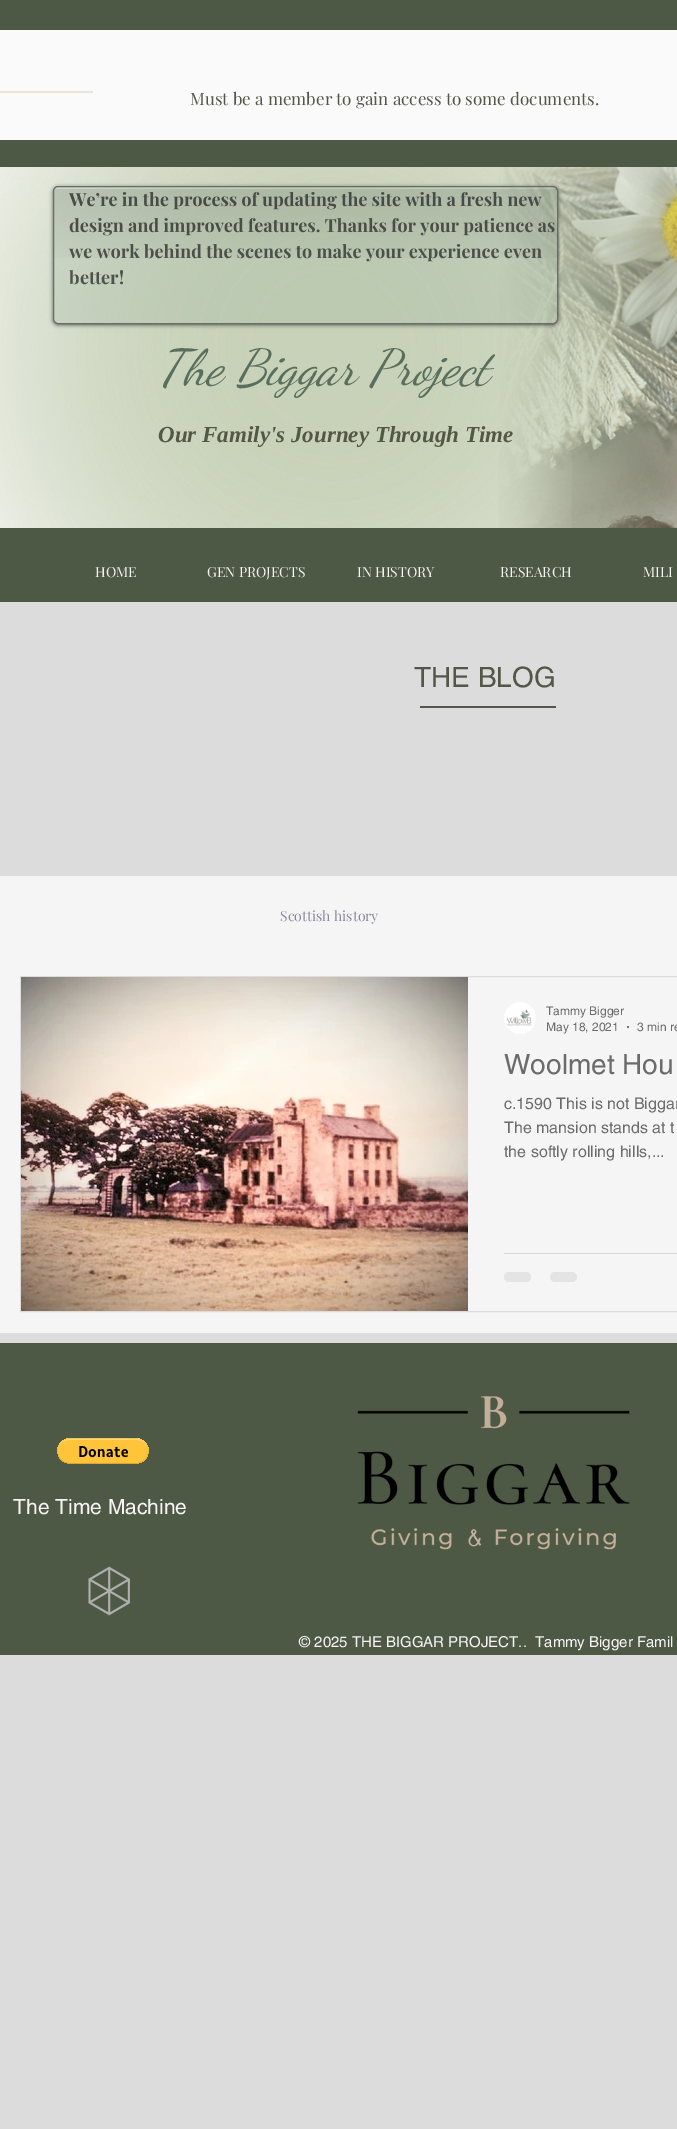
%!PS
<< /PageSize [677 2129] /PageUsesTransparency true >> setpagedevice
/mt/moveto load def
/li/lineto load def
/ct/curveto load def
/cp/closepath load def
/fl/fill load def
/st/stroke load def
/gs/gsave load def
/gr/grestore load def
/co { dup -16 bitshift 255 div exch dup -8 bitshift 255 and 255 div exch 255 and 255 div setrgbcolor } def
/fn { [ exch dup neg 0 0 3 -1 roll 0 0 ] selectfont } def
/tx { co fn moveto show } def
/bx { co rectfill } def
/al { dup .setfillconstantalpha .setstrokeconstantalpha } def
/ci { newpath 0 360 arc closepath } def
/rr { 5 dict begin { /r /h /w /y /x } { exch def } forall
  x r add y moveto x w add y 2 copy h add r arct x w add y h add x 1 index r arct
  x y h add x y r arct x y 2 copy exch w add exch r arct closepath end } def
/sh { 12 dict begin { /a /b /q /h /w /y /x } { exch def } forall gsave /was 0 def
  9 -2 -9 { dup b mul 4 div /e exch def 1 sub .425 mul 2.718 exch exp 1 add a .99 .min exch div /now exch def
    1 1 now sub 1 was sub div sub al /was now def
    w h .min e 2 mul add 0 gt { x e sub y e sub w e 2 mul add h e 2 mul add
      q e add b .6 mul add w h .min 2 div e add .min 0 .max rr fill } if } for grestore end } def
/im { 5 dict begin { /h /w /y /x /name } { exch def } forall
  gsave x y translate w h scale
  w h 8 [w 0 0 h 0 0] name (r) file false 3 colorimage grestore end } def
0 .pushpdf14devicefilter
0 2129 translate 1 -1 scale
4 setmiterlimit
0 0 677 2129 16#DCDCDC bx
0 0 677 602 16#4D5945 bx
0 30 677 110 16#FAFAFA bx
0 91 93 2 16#EBE5D6 bx
(media/1.raw) 0 167 677 361 im
gs
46 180 mt 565 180 li 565 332 li 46 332 li cp 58 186 mt 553 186 li 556 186 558 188 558 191 ct 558 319 li 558 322 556 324 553 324 ct 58 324 li 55 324 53 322 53 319 ct 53 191 li 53 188 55 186 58 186 ct cp eoclip newpath
16#000000 co
53 187 505 138 5 2 .6 sh
gr
420 706 136 2 16#545745 bx
0 876 677 457 16#F5F5F5 bx
16#DCDCDC co
20.5 976.5 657 335 rectstroke
(media/3.raw) 21 977 447 334 im
(media/4.raw) 504 1002 32 32 im
16#6B6B6B co
628 1027 1 ci fl
504 1253 173 1 16#D9D9D9 bx
16#E4E4E4 co
504 1272 27 10 5 rr fl
550 1272 27 10 5 rr fl
0 1343 677 312 16#4D5945 bx
(media/5.raw) 57 1438 92 26 im
(media/6.raw) 357 1396 273 154 im
(media/7.raw) 88 1566 42 50 im
(Must be a member to gain access to some documents.) 190 105 /PlayfairDisplay-Regular 17 16#545745 tx
(We’re in the process of updating the site with a fresh new) 69 206 /PlayfairDisplay-Bold 18 16#2F2E2E tx
(design and improved features. Thanks for your patience as) 69 232 /PlayfairDisplay-Bold 18 16#2F2E2E tx
(we work behind the scenes to make your experience even) 69 258 /PlayfairDisplay-Bold 18 16#2F2E2E tx
(better!) 69 284 /PlayfairDisplay-Bold 18 16#2F2E2E tx
0.27 al
16#9DB39F co
53 186 505 138 5 rr fl
1 al
(media/2.raw) 53 189 505 69 im
16#6B6B6B co
53.5 186.5 504 137 4.5 rr st
(The Biggar Project) 158 384 /DancingScript-Italic 50 16#5A6E5D tx
(Our Family's Journey Through Time) 158 442 /LiberationSerif-BoldItalic 23 16#545745 tx
(HOME) 95 577 /PlayfairDisplay-Regular 14 16#F5F5F5 tx
(GEN PROJECTS) 207 577 /PlayfairDisplay-Regular 14 16#F5F5F5 tx
(IN HISTORY) 357 577 /PlayfairDisplay-Regular 14 16#F5F5F5 tx
(RESEARCH) 500 577 /PlayfairDisplay-Regular 14 16#F5F5F5 tx
(MILI) 643 577 /PlayfairDisplay-Regular 14 16#F5F5F5 tx
(THE BLOG) 414 687 /helvetica-Regular 28 16#545745 tx
(Scottish history) 280 921 /PlayfairDisplay-Regular 14 16#8B869E tx
(Tammy Bigger) 546 1015 /helvetica-Regular 12 16#6B6B6B tx
(May 18, 2021) 546 1031 /helvetica-Regular 12 16#6B6B6B tx
(3 min re) 637 1031 /helvetica-Regular 12 16#6B6B6B tx
(Woolmet Hou) 504 1074 /helvetica-Regular 28 16#6B6B6B tx
(c.1590 This is not Biggar) 504 1109 /helvetica-Regular 16 16#6B6B6B tx
(The mansion stands at t) 504 1133 /helvetica-Regular 16 16#6B6B6B tx
(the softly rolling hills,...) 504 1157 /helvetica-Regular 16 16#6B6B6B tx
(The Time Machine) 13 1514 /helvetica-Regular 21 16#F5F5F5 tx
(© 2025 THE BIGGAR PROJECT..) 299 1647 /helvetica-Regular 15 16#F5F5F5 tx
(Tammy Bigger Famil) 535 1647 /helvetica-Regular 15 16#F5F5F5 tx
.poppdf14devicefilter showpage
